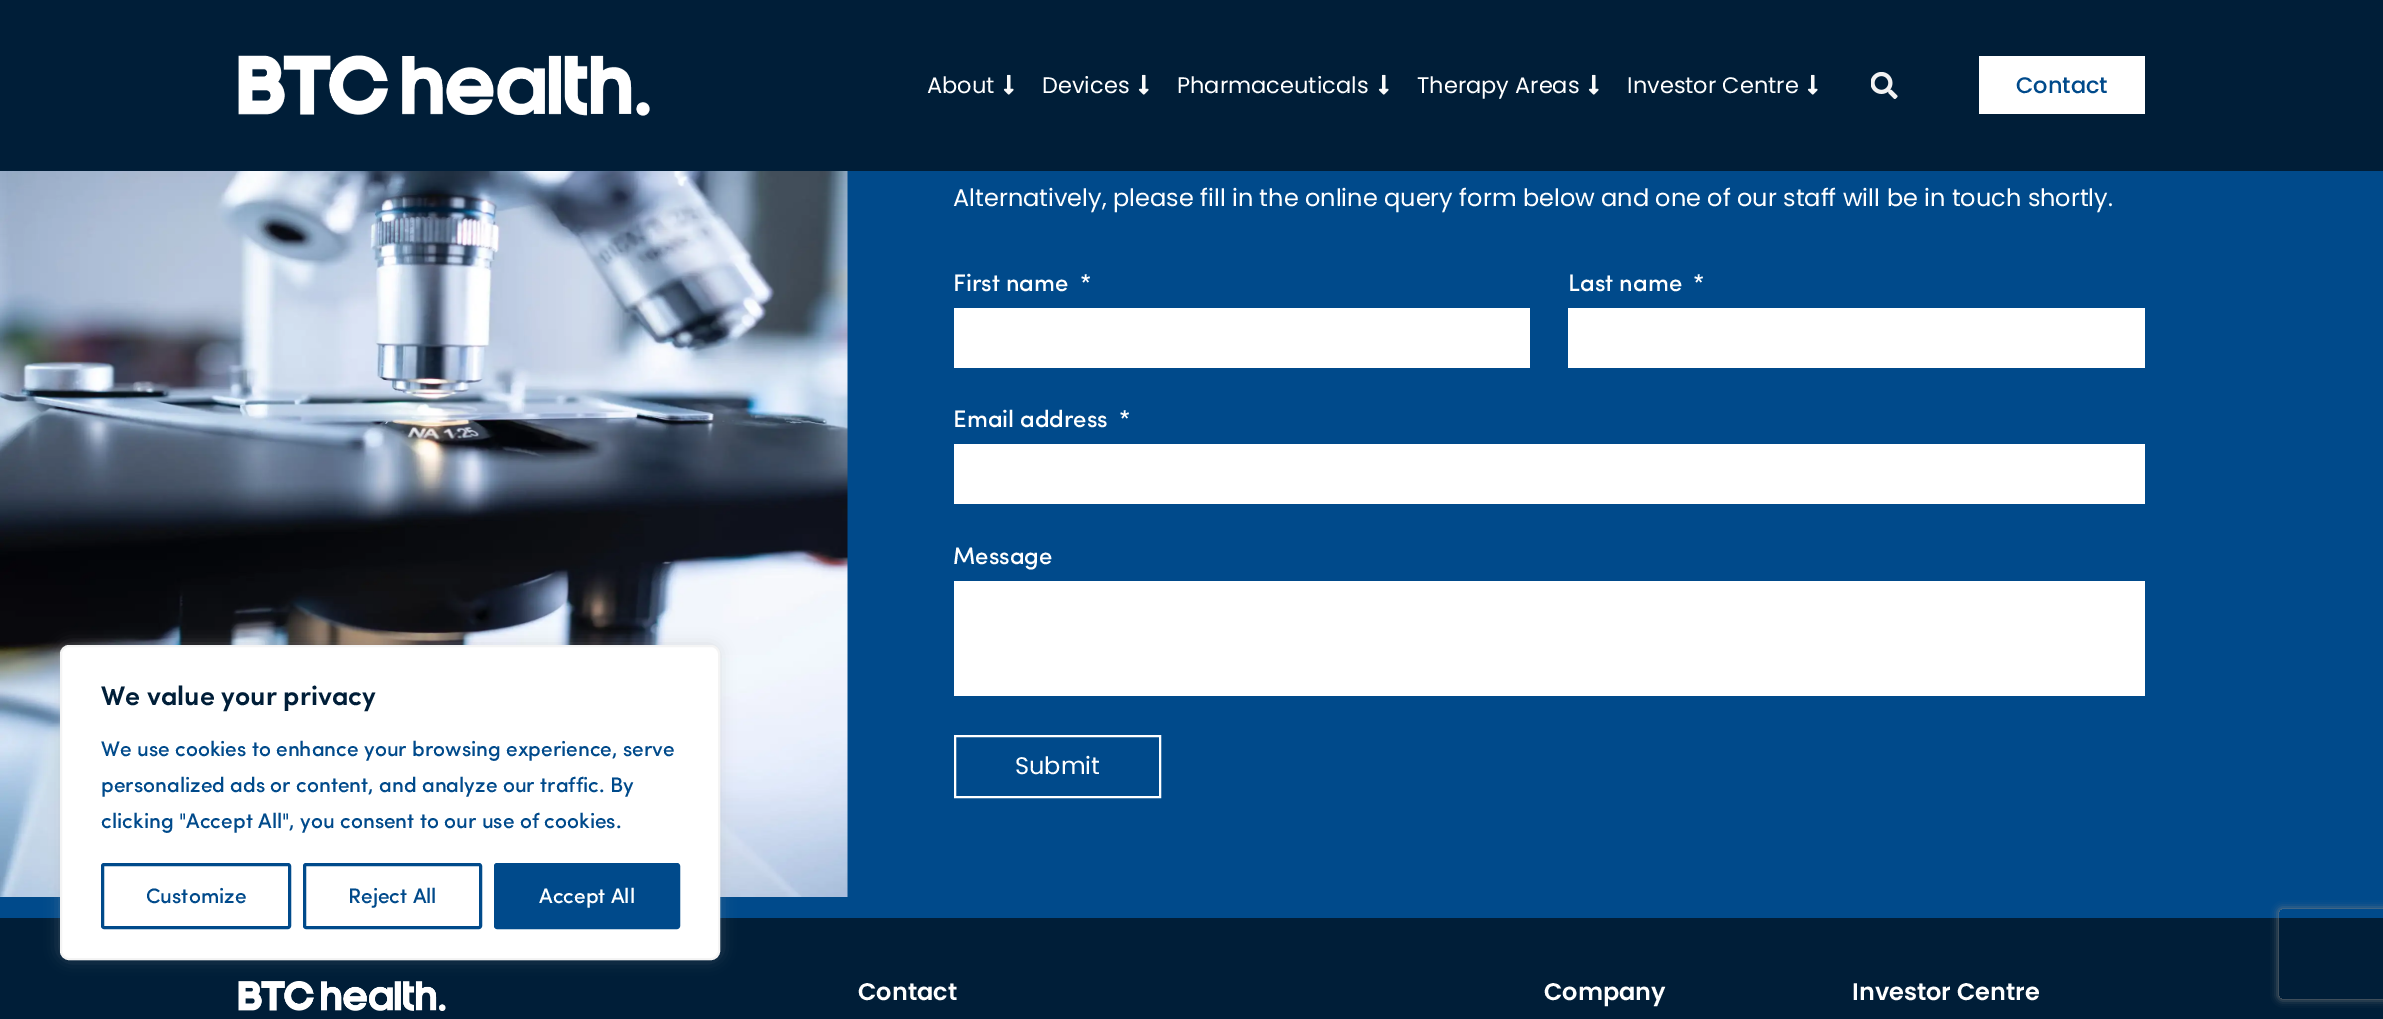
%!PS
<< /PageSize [2383 1019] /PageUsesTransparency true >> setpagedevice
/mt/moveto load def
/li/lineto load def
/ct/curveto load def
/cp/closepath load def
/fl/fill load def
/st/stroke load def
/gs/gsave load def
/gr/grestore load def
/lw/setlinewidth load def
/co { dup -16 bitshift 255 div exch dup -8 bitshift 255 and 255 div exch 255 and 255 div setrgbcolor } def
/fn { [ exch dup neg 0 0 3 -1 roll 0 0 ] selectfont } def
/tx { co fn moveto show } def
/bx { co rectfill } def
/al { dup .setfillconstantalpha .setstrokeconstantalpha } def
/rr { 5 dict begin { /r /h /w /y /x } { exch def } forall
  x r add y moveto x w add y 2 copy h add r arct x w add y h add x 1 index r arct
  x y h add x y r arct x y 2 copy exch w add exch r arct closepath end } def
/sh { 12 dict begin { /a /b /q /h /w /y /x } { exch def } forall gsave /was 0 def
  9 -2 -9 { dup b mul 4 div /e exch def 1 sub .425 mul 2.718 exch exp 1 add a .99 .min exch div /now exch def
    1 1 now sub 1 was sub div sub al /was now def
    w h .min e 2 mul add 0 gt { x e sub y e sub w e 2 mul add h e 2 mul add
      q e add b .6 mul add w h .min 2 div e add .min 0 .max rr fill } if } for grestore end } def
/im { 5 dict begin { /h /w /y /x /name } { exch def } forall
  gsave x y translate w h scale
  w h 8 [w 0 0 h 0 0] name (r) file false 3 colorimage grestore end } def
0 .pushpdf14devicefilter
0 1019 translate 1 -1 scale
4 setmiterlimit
0 0 2383 1019 16#004A8B bx
0 0 2383 171 16#001E38 bx
(media/1.raw) 238 55 412 61 im
(media/2.raw) 1003 74 11 21 im
(media/2.raw) 1138 74 11 21 im
(media/2.raw) 1378 74 11 21 im
(media/2.raw) 1588 74 11 21 im
(media/2.raw) 1807 74 11 21 im
(media/3.raw) 1871 72 27 27 im
1979 56 166 58 16#FFFFFF bx
(media/4.raw) 0 171 848 726 im
0 918 2383 101 16#001E38 bx
(media/5.raw) 238 981 208 30 im
16#ACABAB co
60 644 660 315 9 7.5 .3 sh
16#FFFFFF co
61 646 658 313 8 rr gs fl gr
16#F4F4F4 co
2 lw
st
16#004A8B co
3 lw
102.5 864.5 187 63 1.5 rr st
304.5 864.5 176 63 1.5 rr st
495.5 864.5 183 63 1.5 rr gs fl gr
st
954 308 576 60 16#FFFFFF bx
1568 308 577 60 16#FFFFFF bx
954 444 1191 60 16#FFFFFF bx
954 581 1191 115 16#FFFFFF bx
2 lw
955 736 205 61 rectstroke
gs
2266 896 mt 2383 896 li 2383 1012 li 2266 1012 li cp 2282 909 mt 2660 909 li 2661.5 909 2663 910.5 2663 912 ct 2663 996 li 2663 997.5 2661.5 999 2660 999 ct 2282 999 li 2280.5 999 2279 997.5 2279 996 ct 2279 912 li 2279 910.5 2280.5 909 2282 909 ct cp eoclip newpath
16#808080 co
2279 909 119 90 3 4 1 sh
gr
(About) 927 93 /Poppins-Regular 22.5 16#FFFFFF tx
(Devices) 1042 93 /Poppins-Regular 22.5 16#FFFFFF tx
(Pharmaceuticals) 1177 93 /Poppins-Regular 22.5 16#FFFFFF tx
(Therapy Areas) 1417 93 /Poppins-Regular 22.5 16#FFFFFF tx
(Investor Centre) 1627 93 /Poppins-Regular 22.5 16#FFFFFF tx
(Contact) 2016 93 /Poppins-Medium 22.5 16#004A8B tx
(We value your privacy) 101 705 /Sofia-SemiBold 27 16#001E38 tx
(We use cookies to enhance your browsing experience, serve) 101 756 /Sofia-Medium 21 16#004A8B tx
(personalized ads or content, and analyze our traffic. By) 101 792 /Sofia-Medium 21 16#004A8B tx
(clicking "Accept All", you consent to our use of cookies.) 101 828 /Sofia-Medium 21 16#004A8B tx
(Customize) 146 903 /Sofia-Medium 21 16#004A8B tx
(Reject All) 348 903 /Sofia-Medium 21 16#004A8B tx
(Accept All) 539 903 /Sofia-Medium 21 16#FFFFFF tx
(Alternatively, please fill in the online query form below and one of our staff will be in touch shortly.) 953 206 /Poppins-Regular 24 16#FFFFFF tx
(First name) 953 291 /Sofia-Medium 24 16#FFFFFF tx
(*) 1080 291 /Sofia-Medium 24 16#FFFFFF tx
(Last name) 1568 291 /Sofia-Medium 24 16#FFFFFF tx
(*) 1693 291 /Sofia-Medium 24 16#FFFFFF tx
(Email address) 953 427 /Sofia-Medium 24 16#FFFFFF tx
(*) 1119 427 /Sofia-Medium 24 16#FFFFFF tx
(Message) 953 564 /Sofia-Medium 24 16#FFFFFF tx
(Submit) 1015 774 /Poppins-Regular 24 16#FFFFFF tx
(Contact) 858 1000 /Poppins-SemiBold 24 16#FFFFFF tx
(Company) 1544 1000 /Poppins-SemiBold 24 16#FFFFFF tx
(Investor Centre) 1852 1000 /Poppins-SemiBold 24 16#FFFFFF tx
.poppdf14devicefilter showpage
